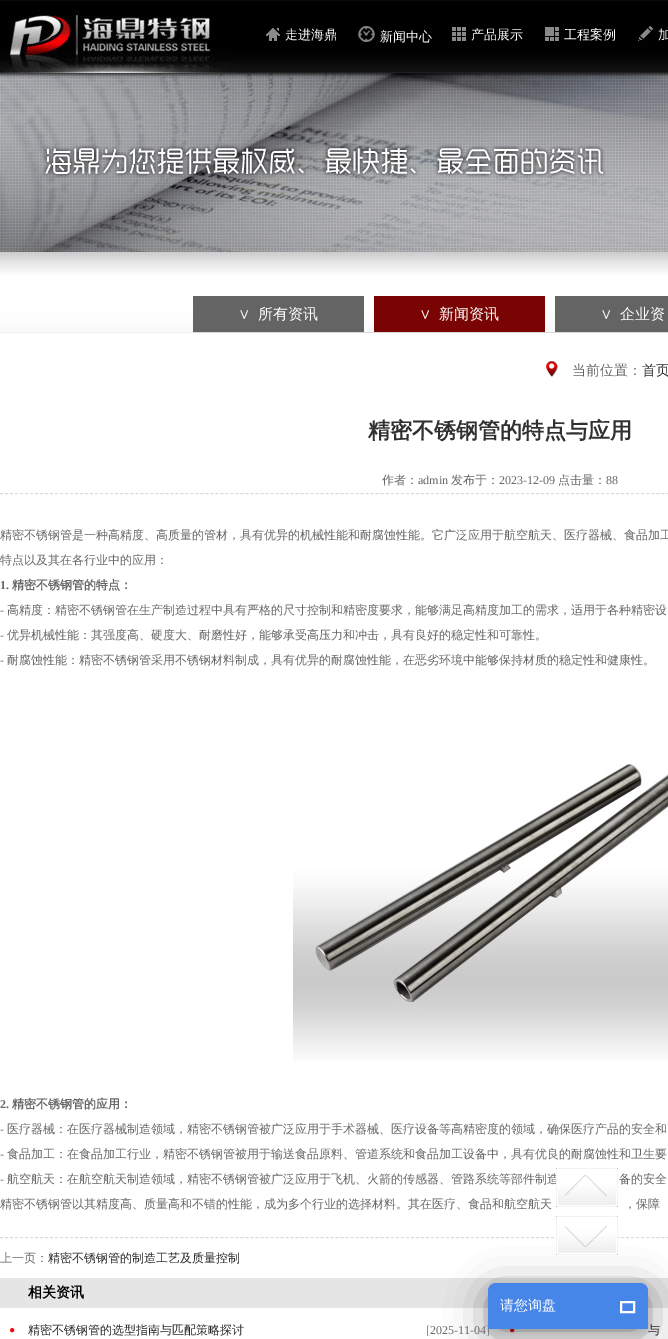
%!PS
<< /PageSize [668 1339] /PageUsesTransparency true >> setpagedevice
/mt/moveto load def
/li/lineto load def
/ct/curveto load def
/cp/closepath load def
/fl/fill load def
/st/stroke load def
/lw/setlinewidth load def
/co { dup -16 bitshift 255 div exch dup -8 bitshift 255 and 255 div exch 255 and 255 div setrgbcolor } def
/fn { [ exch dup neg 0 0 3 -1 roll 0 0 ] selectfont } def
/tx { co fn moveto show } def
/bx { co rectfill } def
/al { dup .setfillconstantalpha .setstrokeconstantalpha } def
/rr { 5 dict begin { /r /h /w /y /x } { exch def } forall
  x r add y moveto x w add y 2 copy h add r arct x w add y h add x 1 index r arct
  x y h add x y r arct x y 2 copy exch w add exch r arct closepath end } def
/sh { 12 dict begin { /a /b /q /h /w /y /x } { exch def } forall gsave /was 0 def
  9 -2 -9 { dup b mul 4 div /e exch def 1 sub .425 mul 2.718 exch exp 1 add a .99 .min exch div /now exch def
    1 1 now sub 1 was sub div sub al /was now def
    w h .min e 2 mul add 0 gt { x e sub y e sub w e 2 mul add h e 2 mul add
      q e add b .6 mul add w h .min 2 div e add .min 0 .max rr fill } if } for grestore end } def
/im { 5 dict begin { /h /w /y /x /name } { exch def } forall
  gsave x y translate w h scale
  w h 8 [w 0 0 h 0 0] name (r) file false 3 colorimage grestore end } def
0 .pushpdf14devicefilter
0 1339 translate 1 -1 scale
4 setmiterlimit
0 0 668 1339 16#FFFFFF bx
(media/1.raw) 0 0 668 73 im
(media/2.raw) 0 10 235 63 im
(media/3.raw) 266 28 14 13 im
(media/4.raw) 358 26 17 16 im
(media/5.raw) 452 27 14 14 im
(media/6.raw) 545 27 14 14 im
(media/7.raw) 638 26 15 15 im
(media/8.raw) 0 73 668 179 im
(media/9.raw) 0 252 668 81 im
193 332 475 1 16#D7D7D7 bx
193 296 171 36 16#646464 bx
374 296 171 36 16#7A0404 bx
555 296 113 36 16#646464 bx
(media/10.raw) 546 361 12 16 im
16#DDDDDD co
[3 2.01] 0 setdash
0 493.5 mt 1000 493.5 li st
(media/11.raw) 293 764 375 297 im
0 1237.5 mt 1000 1237.5 li st
0 1278 668 30 16#E6E5E5 bx
(media/12.raw) 10 1326 6 8 im
(media/13.raw) 510 1329 6 5 im
16#000000 co
488 1291 160 46 8 20 .4 sh
(media/15.raw) 556 1216 62 39 im
488 1287 160 46 8 4 .12 sh
(走进海鼎) 285 39 /WenQuanYiZenHei-Medium 13 16#FFFFFF tx
(新闻中心) 380 41 /WenQuanYiZenHei-Medium 13 16#FFFFFF tx
(产品展示) 471 39 /WenQuanYiZenHei-Medium 13 16#FFFFFF tx
(工程案例) 564 39 /WenQuanYiZenHei-Medium 13 16#FFFFFF tx
(加) 658 39 /WenQuanYiZenHei-Medium 13 16#FFFFFF tx
(∨) 238 319 /WenQuanYiZenHei-Medium 15 16#FFFFFF tx
(所有资讯) 258 319 /WenQuanYiZenHei-Medium 15 16#FFFFFF tx
(∨) 419 319 /WenQuanYiZenHei-Medium 15 16#FFFFFF tx
(新闻资讯) 439 319 /WenQuanYiZenHei-Medium 15 16#FFFFFF tx
(∨) 600 319 /WenQuanYiZenHei-Medium 15 16#FFFFFF tx
(企业资) 620 319 /WenQuanYiZenHei-Medium 15 16#FFFFFF tx
(当前位置：) 572 375 /WenQuanYiZenHei-Medium 14 16#666666 tx
(首页) 642 375 /WenQuanYiZenHei-Medium 14 16#282828 tx
(精密不锈钢管的特点与应用) 368 438 /WenQuanYiZenHei-Bold 22 16#303030 tx
(作者：) 382 484 /WenQuanYiZenHei-Medium 12 16#666666 tx
(admin) 418 484 /LiberationSerif-Regular 12 16#666666 tx
(发布于：) 451 484 /WenQuanYiZenHei-Medium 12 16#666666 tx
(2023-12-09) 499 484 /LiberationSerif-Regular 12 16#666666 tx
(点击量：) 558 484 /WenQuanYiZenHei-Medium 12 16#666666 tx
(88) 606 484 /LiberationSerif-Regular 12 16#666666 tx
(精密不锈钢管是一种高精度、高质量的管材，具有优异的机械性能和耐腐蚀性能。它广泛应用于航空航天、医疗器械、食品加工) 0 539 /WenQuanYiZenHei-Medium 12 16#666666 tx
(特点以及其在各行业中的应用：) 0 564 /WenQuanYiZenHei-Medium 12 16#666666 tx
(1.) 0 589 /LiberationSerif-Bold 12 16#666666 tx
(精密不锈钢管的特点：) 12 589 /WenQuanYiZenHei-Bold 12 16#666666 tx
(-) 0 614 /LiberationSerif-Regular 12 16#666666 tx
(高精度：精密不锈钢管在生产制造过程中具有严格的尺寸控制和精密度要求，能够满足高精度加工的需求，适用于各种精密设) 7 614 /WenQuanYiZenHei-Medium 12 16#666666 tx
(-) 0 639 /LiberationSerif-Regular 12 16#666666 tx
(优异机械性能：其强度高、硬度大、耐磨性好，能够承受高压力和冲击，具有良好的稳定性和可靠性。) 7 639 /WenQuanYiZenHei-Medium 12 16#666666 tx
(-) 0 664 /LiberationSerif-Regular 12 16#666666 tx
(耐腐蚀性能：精密不锈钢管采用不锈钢材料制成，具有优异的耐腐蚀性能，在恶劣环境中能够保持材质的稳定性和健康性。) 7 664 /WenQuanYiZenHei-Medium 12 16#666666 tx
(2.) 0 1108 /LiberationSerif-Bold 12 16#666666 tx
(精密不锈钢管的应用：) 12 1108 /WenQuanYiZenHei-Bold 12 16#666666 tx
(-) 0 1133 /LiberationSerif-Regular 12 16#666666 tx
(医疗器械：在医疗器械制造领域，精密不锈钢管被广泛应用于手术器械、医疗设备等高精密度的领域，确保医疗产品的安全和) 7 1133 /WenQuanYiZenHei-Medium 12 16#666666 tx
(-) 0 1158 /LiberationSerif-Regular 12 16#666666 tx
(食品加工：在食品加工行业，精密不锈钢管被用于输送食品原料、管道系统和食品加工设备中，具有优良的耐腐蚀性和卫生要) 7 1158 /WenQuanYiZenHei-Medium 12 16#666666 tx
(-) 0 1183 /LiberationSerif-Regular 12 16#666666 tx
(航空航天：在航空航天制造领域，精密不锈钢管被广泛应用于飞机、火箭的传感器、管路系统等部件制造) 7 1183 /WenQuanYiZenHei-Medium 12 16#666666 tx
(备的安全) 619 1183 /WenQuanYiZenHei-Medium 12 16#666666 tx
(精密不锈钢管以其精度高、质量高和不错的性能，成为多个行业的选择材料。其在医疗、食品和航空航天) 0 1208 /WenQuanYiZenHei-Medium 12 16#666666 tx
(，保障) 624 1208 /WenQuanYiZenHei-Medium 12 16#666666 tx
(上一页：) 0 1262 /WenQuanYiZenHei-Medium 12 16#666666 tx
(精密不锈钢管的制造工艺及质量控制) 48 1262 /WenQuanYiZenHei-Medium 12 16#282828 tx
(相关资讯) 28 1297 /WenQuanYiZenHei-Bold 14 16#000000 tx
(精密不锈钢管的选型指南与匹配策略探讨) 28 1334 /WenQuanYiZenHei-Medium 12 16#282828 tx
([2025-11-04]) 426 1334 /LiberationSerif-Regular 12 16#666666 tx
(与) 648 1334 /WenQuanYiZenHei-Medium 12 16#282828 tx
(media/14.raw) 556 1168 62 39 im
16#4686E8 co
496 1283 mt 640 1283 li 644.5 1283 648 1286.5 648 1291 ct 648 1329 li 488 1329 li 488 1291 li 488 1286.5 491.5 1283 496 1283 ct cp fl
(请您询盘) 500 1310 /WenQuanYiZenHei-Medium 14 16#FFFFFF tx
2 lw
[] 0 setdash
621 1302 13 10 rectstroke
.poppdf14devicefilter showpage
